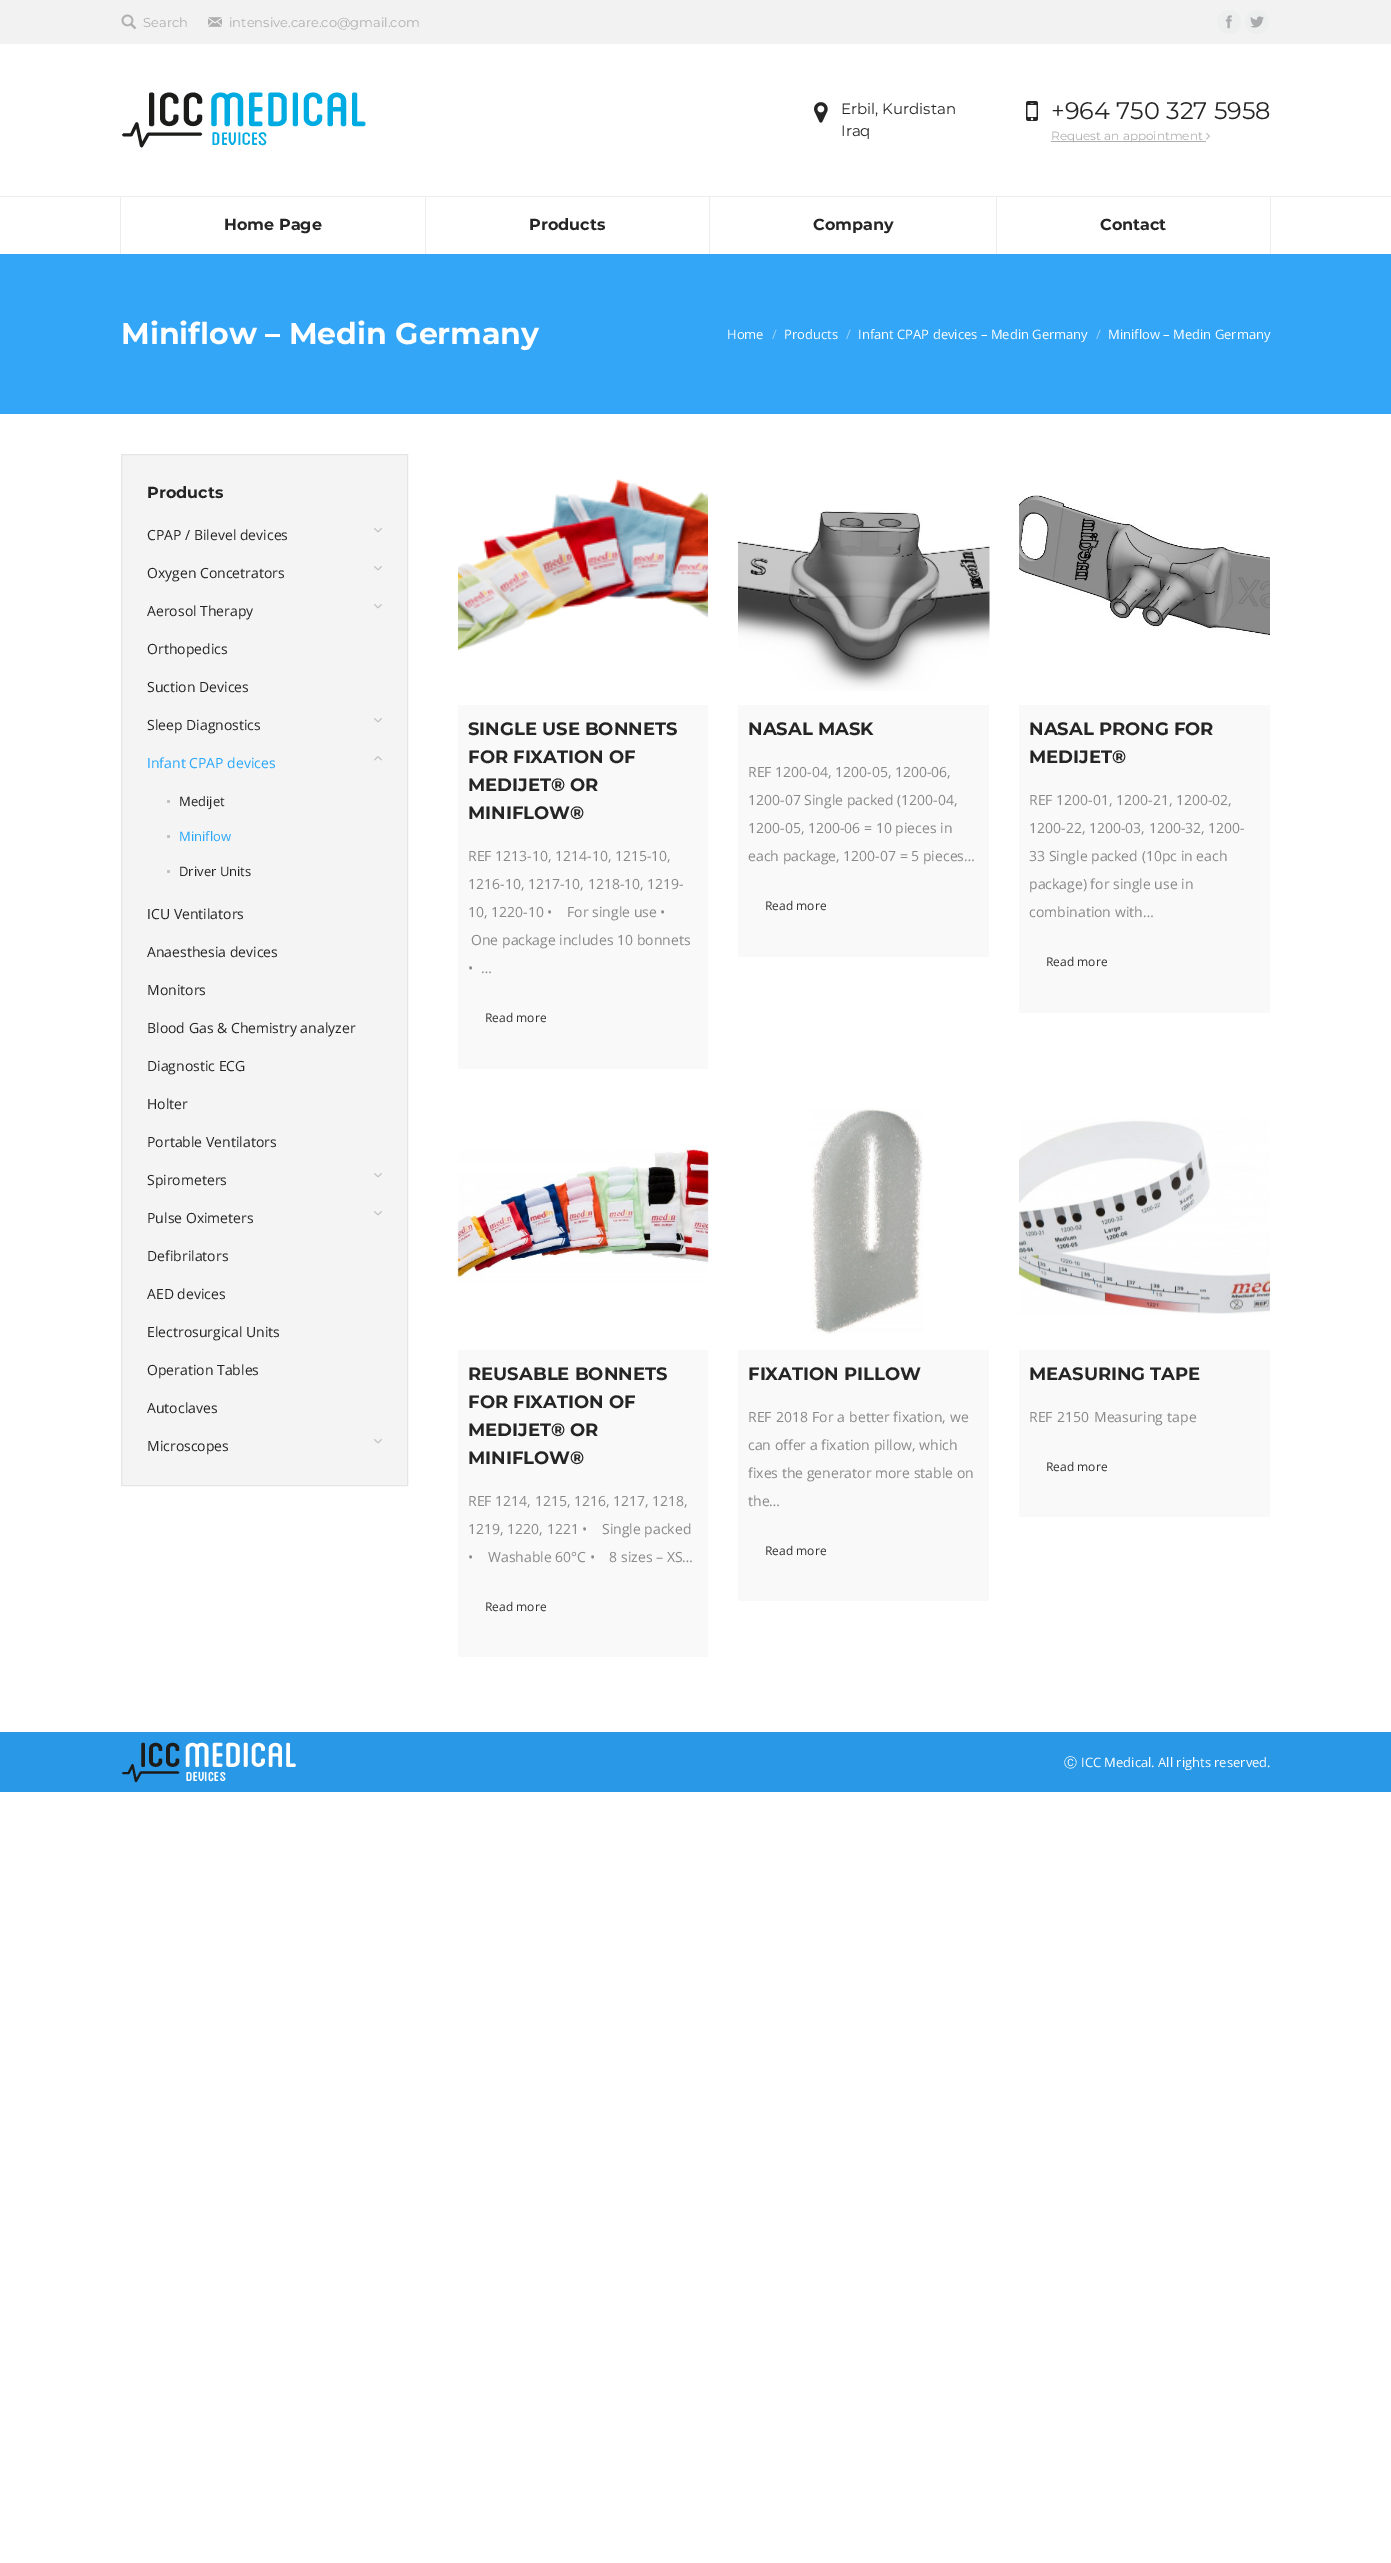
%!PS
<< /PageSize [1391 2563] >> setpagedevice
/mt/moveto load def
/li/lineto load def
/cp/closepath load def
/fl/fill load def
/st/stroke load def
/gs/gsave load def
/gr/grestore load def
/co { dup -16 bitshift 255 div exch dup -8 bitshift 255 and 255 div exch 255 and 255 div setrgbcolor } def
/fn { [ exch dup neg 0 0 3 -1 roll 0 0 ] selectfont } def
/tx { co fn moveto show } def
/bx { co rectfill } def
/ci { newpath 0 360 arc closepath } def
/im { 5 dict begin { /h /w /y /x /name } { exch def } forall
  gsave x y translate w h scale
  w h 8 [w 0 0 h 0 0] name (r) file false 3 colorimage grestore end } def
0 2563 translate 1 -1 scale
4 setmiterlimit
0 0 1391 2563 16#FFFFFF bx
0 0 1391 44 16#F2F2F2 bx
(media/1.raw) 121 14 16 16 im
(media/2.raw) 208 17 14 10 im
16#EDEEEE co
1229 22 12 ci fl
(media/3.raw) 1225 15 7 14 im
1257 22 12 ci fl
(media/4.raw) 1250 16 14 12 im
(media/5.raw) 121 92 245 56 im
(media/6.raw) 814 102 14 21 im
(media/7.raw) 1026 101 12 20 im
1051 141 155 1 16#AFAFAF bx
(media/8.raw) 1206 132 4 8 im
0 196 1391 1 16#EDEDED bx
120 196 1 58 16#EDEDED bx
425 196 1 58 16#EDEDED bx
709 196 1 58 16#EDEDED bx
996 196 1 58 16#EDEDED bx
1270 196 1 58 16#EDEDED bx
0 254 1391 160 16#34A6F7 bx
16#F4F4F4 co
121.5 454.5 mt 407.5 454.5 li 407.5 1485.5 li 121.5 1485.5 li cp gs fl gr
16#E5E5E5 co
st
(media/9.raw) 374 528 8 5 im
(media/9.raw) 374 566 8 5 im
(media/9.raw) 374 604 8 5 im
(media/9.raw) 374 718 8 5 im
(media/10.raw) 374 756 8 5 im
16#BFBFBF co
168.5 801.5 1.5 ci fl
168.5 836.5 1.5 ci fl
168.5 871.5 1.5 ci fl
(media/9.raw) 374 1173 8 5 im
(media/9.raw) 374 1211 8 5 im
(media/9.raw) 374 1439 8 5 im
(media/11.raw) 458 479 250 172 im
458 705 250 364 16#F9F9F9 bx
(media/12.raw) 738 510 252 181 im
738 705 251 252 16#F9F9F9 bx
(media/13.raw) 1019 495 251 141 im
1019 705 251 308 16#F9F9F9 bx
(media/14.raw) 457 1146 252 136 im
458 1350 250 307 16#F9F9F9 bx
(media/15.raw) 811 1108 112 226 im
738 1350 251 251 16#F9F9F9 bx
(media/16.raw) 1019 1119 251 196 im
1019 1350 251 167 16#F9F9F9 bx
0 1732 1391 60 16#2998E7 bx
(media/17.raw) 121 1742 175 41 im
(Search) 143 27 /Montserrat-Regular 13 16#AFAFAF tx
(intensive.care.co@gmail.com) 229 27 /Montserrat-Regular 13 16#AFAFAF tx
(Erbil, Kurdistan) 841 114 /Montserrat-Regular 15 16#252525 tx
(Iraq) 841 136 /Montserrat-Regular 15 16#252525 tx
(+964 750 327 5958) 1051 119 /Montserrat-Regular 24 16#252525 tx
(Request an appointment) 1051 140 /Montserrat-Regular 12 16#AFAFAF tx
(Home Page) 224 230 /Montserrat-Bold 16 16#252525 tx
(Products) 529 230 /Montserrat-Bold 16 16#252525 tx
(Company) 813 230 /Montserrat-Bold 16 16#252525 tx
(Contact) 1100 230 /Montserrat-Bold 16 16#252525 tx
(Miniflow – Medin Germany) 121 344 /Montserrat-Bold 30 16#FFFFFF tx
(Home) 727 339 /OpenSans-Regular 13 16#FFFFFF tx
(/) 772 339 /OpenSans-Regular 13 16#9AD3FB tx
(Products) 784 339 /OpenSans-Regular 13 16#FFFFFF tx
(/) 846 339 /OpenSans-Regular 13 16#9AD3FB tx
(Infant CPAP devices – Medin Germany) 858 339 /OpenSans-Regular 13 16#FFFFFF tx
(/) 1096 339 /OpenSans-Regular 13 16#9AD3FB tx
(Miniflow – Medin Germany) 1108 339 /OpenSans-Regular 13 16#FFFFFF tx
(Products) 147 498 /Montserrat-Bold 16 16#252525 tx
(CPAP / Bilevel devices) 147 540 /OpenSans-Regular 14 16#252525 tx
(Oxygen Concetrators) 147 578 /OpenSans-Regular 14 16#252525 tx
(Aerosol Therapy) 147 616 /OpenSans-Regular 14 16#252525 tx
(Orthopedics) 147 654 /OpenSans-Regular 14 16#252525 tx
(Suction Devices) 147 692 /OpenSans-Regular 14 16#252525 tx
(Sleep Diagnostics) 147 730 /OpenSans-Regular 14 16#252525 tx
(Infant CPAP devices) 147 768 /OpenSans-Regular 14 16#28A7FB tx
(Medijet) 179 806 /OpenSans-Regular 13 16#252525 tx
(Miniflow) 179 841 /OpenSans-Regular 13 16#28A7FB tx
(Driver Units) 179 876 /OpenSans-Regular 13 16#252525 tx
(ICU Ventilators) 147 919 /OpenSans-Regular 14 16#252525 tx
(Anaesthesia devices) 147 957 /OpenSans-Regular 14 16#252525 tx
(Monitors) 147 995 /OpenSans-Regular 14 16#252525 tx
(Blood Gas & Chemistry analyzer) 147 1033 /OpenSans-Regular 14 16#252525 tx
(Diagnostic ECG) 147 1071 /OpenSans-Regular 14 16#252525 tx
(Holter) 147 1109 /OpenSans-Regular 14 16#252525 tx
(Portable Ventilators) 147 1147 /OpenSans-Regular 14 16#252525 tx
(Spirometers) 147 1185 /OpenSans-Regular 14 16#252525 tx
(Pulse Oximeters) 147 1223 /OpenSans-Regular 14 16#252525 tx
(Defibrilators) 147 1261 /OpenSans-Regular 14 16#252525 tx
(AED devices) 147 1299 /OpenSans-Regular 14 16#252525 tx
(Electrosurgical Units) 147 1337 /OpenSans-Regular 14 16#252525 tx
(Operation Tables) 147 1375 /OpenSans-Regular 14 16#252525 tx
(Autoclaves) 147 1413 /OpenSans-Regular 14 16#252525 tx
(Microscopes) 147 1451 /OpenSans-Regular 14 16#252525 tx
(SINGLE USE BONNETS) 468 735 /Montserrat-Bold 18 16#252525 tx
(FOR FIXATION OF) 468 763 /Montserrat-Bold 18 16#252525 tx
(MEDIJET® OR) 468 791 /Montserrat-Bold 18 16#252525 tx
(MINIFLOW®) 468 819 /Montserrat-Bold 18 16#252525 tx
(REF 1213-10, 1214-10, 1215-10,) 468 861 /OpenSans-Regular 14 16#898989 tx
(1216-10, 1217-10, 1218-10, 1219-) 468 889 /OpenSans-Regular 14 16#898989 tx
(10, 1220-10 •    For single use •) 468 917 /OpenSans-Regular 14 16#898989 tx
(One package includes 10 bonnets) 471 945 /OpenSans-Regular 14 16#898989 tx
(•  …) 468 973 /OpenSans-Regular 14 16#898989 tx
(Read more) 485 1022 /OpenSans-Regular 12 16#333333 tx
(NASAL MASK) 748 735 /Montserrat-Bold 18 16#252525 tx
(REF 1200-04, 1200-05, 1200-06,) 748 777 /OpenSans-Regular 14 16#898989 tx
(1200-07 Single packed \(1200-04,) 748 805 /OpenSans-Regular 14 16#898989 tx
(1200-05, 1200-06 = 10 pieces in) 748 833 /OpenSans-Regular 14 16#898989 tx
(each package, 1200-07 = 5 pieces…) 748 861 /OpenSans-Regular 14 16#898989 tx
(Read more) 765 910 /OpenSans-Regular 12 16#333333 tx
(NASAL PRONG FOR) 1029 735 /Montserrat-Bold 18 16#252525 tx
(MEDIJET®) 1029 763 /Montserrat-Bold 18 16#252525 tx
(REF 1200-01, 1200-21, 1200-02,) 1029 805 /OpenSans-Regular 14 16#898989 tx
(1200-22, 1200-03, 1200-32, 1200-) 1029 833 /OpenSans-Regular 14 16#898989 tx
(33 Single packed \(10pc in each) 1029 861 /OpenSans-Regular 14 16#898989 tx
(package\) for single use in) 1029 889 /OpenSans-Regular 14 16#898989 tx
(combination with…) 1029 917 /OpenSans-Regular 14 16#898989 tx
(Read more) 1046 966 /OpenSans-Regular 12 16#333333 tx
(REUSABLE BONNETS) 468 1380 /Montserrat-Bold 18 16#252525 tx
(FOR FIXATION OF) 468 1408 /Montserrat-Bold 18 16#252525 tx
(MEDIJET® OR) 468 1436 /Montserrat-Bold 18 16#252525 tx
(MINIFLOW®) 468 1464 /Montserrat-Bold 18 16#252525 tx
(REF 1214, 1215, 1216, 1217, 1218,) 468 1506 /OpenSans-Regular 14 16#898989 tx
(1219, 1220, 1221 •    Single packed) 468 1534 /OpenSans-Regular 14 16#898989 tx
(•    Washable 60°C •    8 sizes – XS…) 468 1562 /OpenSans-Regular 14 16#898989 tx
(Read more) 485 1611 /OpenSans-Regular 12 16#333333 tx
(FIXATION PILLOW) 748 1380 /Montserrat-Bold 18 16#252525 tx
/OpenSans-Regular 14 fn
16#898989 co
748 1422 mt .5 0 32 (REF 2018 For a better fixation, we) widthshow
(can offer a fixation pillow, which) 748 1450 /OpenSans-Regular 14 16#898989 tx
(fixes the generator more stable on) 748 1478 /OpenSans-Regular 14 16#898989 tx
(the…) 748 1506 /OpenSans-Regular 14 16#898989 tx
(Read more) 765 1555 /OpenSans-Regular 12 16#333333 tx
(MEASURING TAPE) 1029 1380 /Montserrat-Bold 18 16#252525 tx
/OpenSans-Regular 14 fn
16#898989 co
1029 1422 mt 1 0 32 (REF 2150 Measuring tape) widthshow
(Read more) 1046 1471 /OpenSans-Regular 12 16#333333 tx
(Ⓒ) 1064 1767 /WenQuanYiZenHei-Medium 13 16#FFFFFF tx
(ICC Medical. All rights reserved.) 1081 1767 /OpenSans-Regular 13 16#FFFFFF tx
showpage
